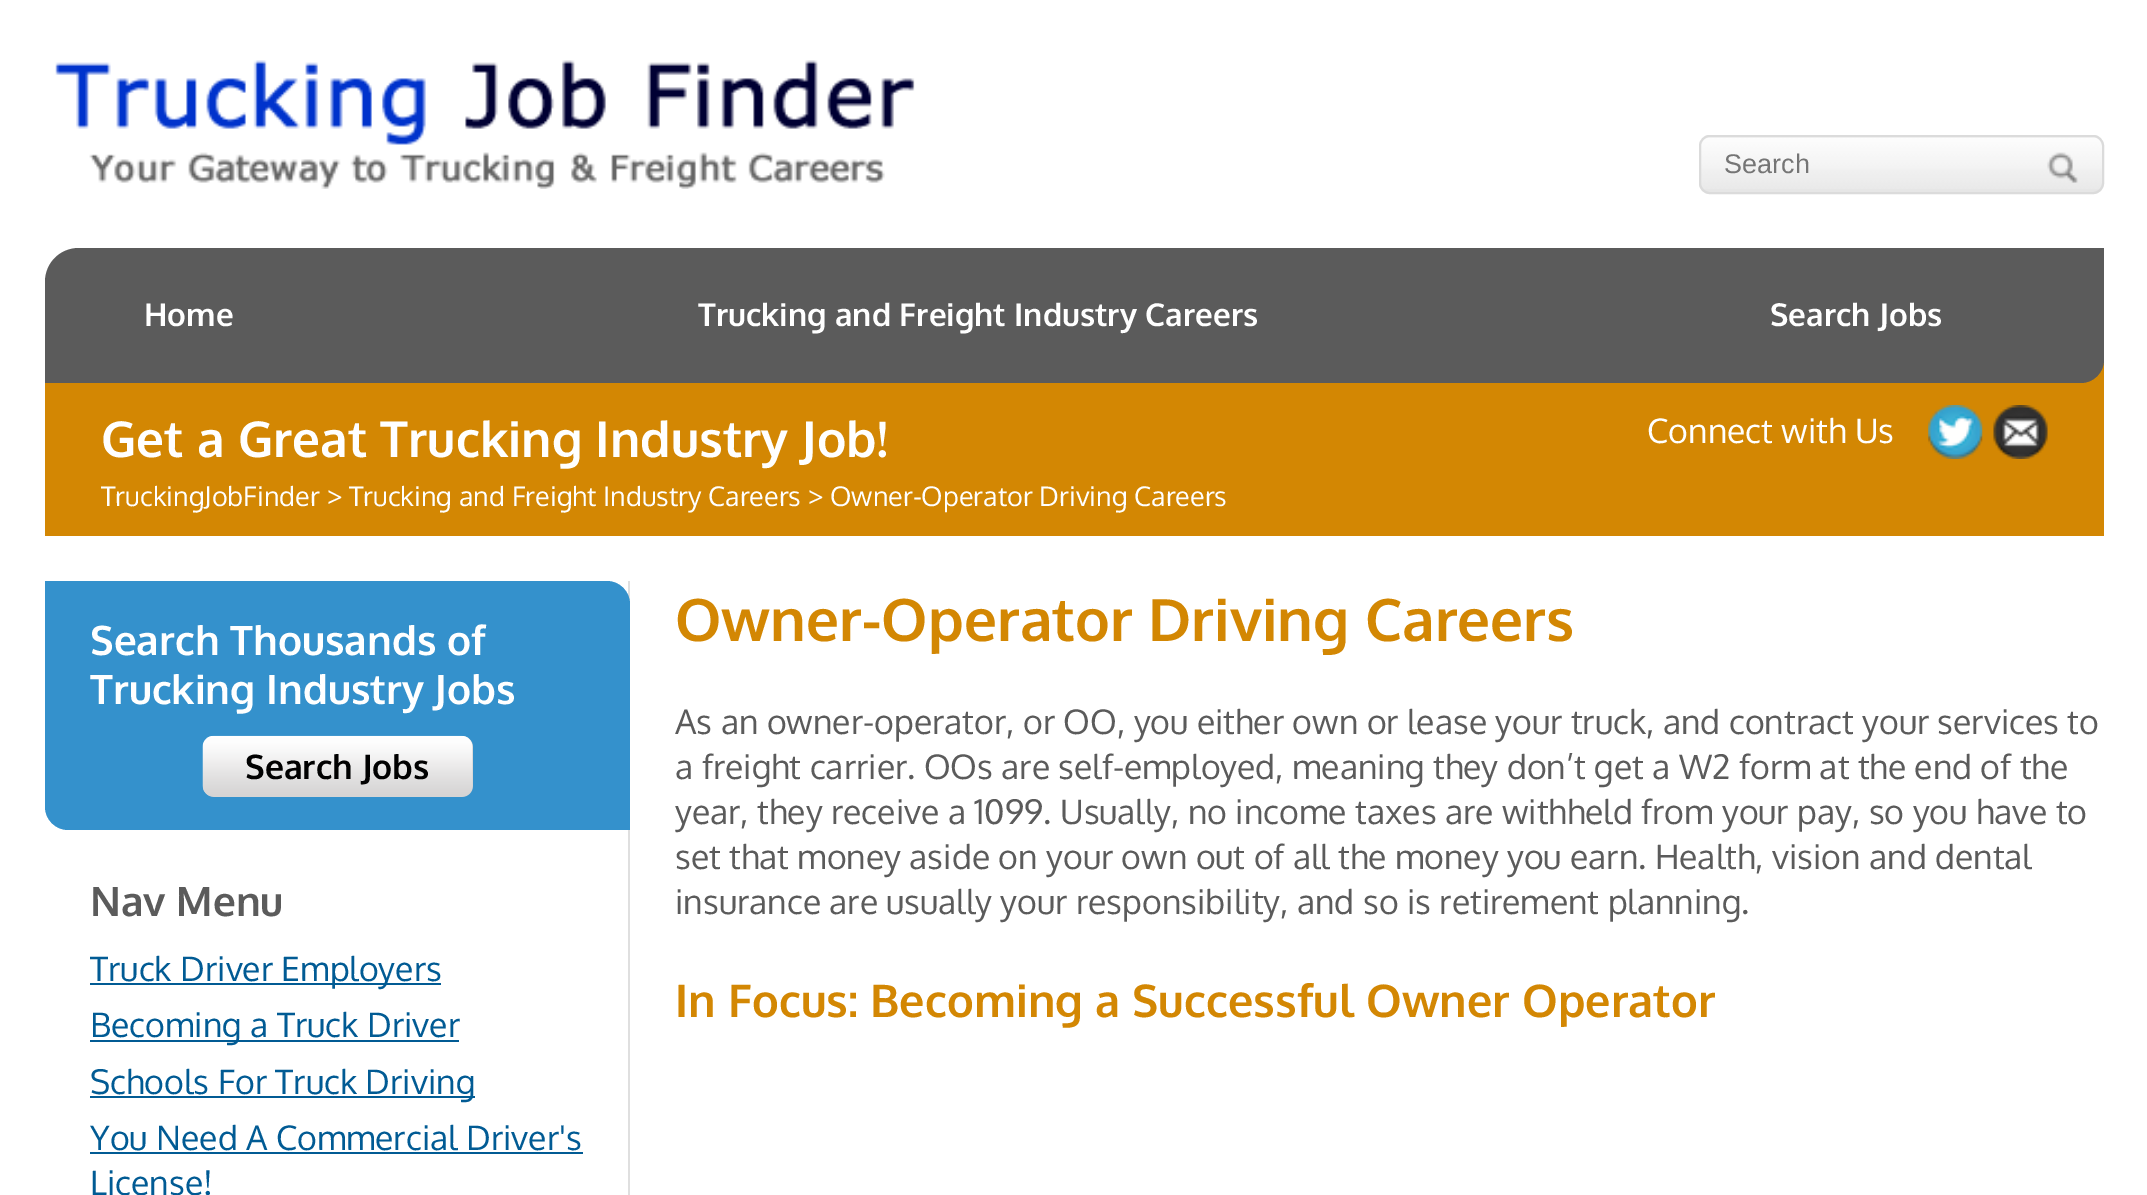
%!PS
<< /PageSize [2147 1195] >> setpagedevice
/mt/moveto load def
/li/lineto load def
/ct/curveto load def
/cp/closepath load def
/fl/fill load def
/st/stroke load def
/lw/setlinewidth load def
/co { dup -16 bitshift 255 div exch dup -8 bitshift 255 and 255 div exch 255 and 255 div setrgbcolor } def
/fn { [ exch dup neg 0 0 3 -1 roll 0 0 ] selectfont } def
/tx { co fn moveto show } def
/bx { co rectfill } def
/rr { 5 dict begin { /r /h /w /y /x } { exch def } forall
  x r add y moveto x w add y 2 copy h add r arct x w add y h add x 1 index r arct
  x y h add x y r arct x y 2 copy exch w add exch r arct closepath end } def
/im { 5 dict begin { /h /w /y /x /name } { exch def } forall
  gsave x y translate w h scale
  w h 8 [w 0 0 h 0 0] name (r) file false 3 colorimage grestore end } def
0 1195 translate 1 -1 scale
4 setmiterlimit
0 0 2147 1195 16#FFFFFF bx
(media/1.raw) 55 60 860 129 im
16#E6E6E6 co
1699 135 405 59 11 rr fl
(media/2.raw) 1699 137 405 52 im
16#DBDBDB co
2 lw
1700 136 403 57 10 rr st
(media/3.raw) 2047 152 31 31 im
45 360 2059 176 16#D38703 bx
16#5B5B5B co
79 248 mt 2104 248 li 2104 360 li 2104 372.5 2093.5 383 2081 383 ct 45 383 li 45 282 li 45 263 60 248 79 248 ct cp fl
(media/4.raw) 1928 405 55 54 im
(media/5.raw) 1993 405 55 54 im
628 581 2 614 16#DFDFDF bx
16#3491CC co
45 581 mt 607 581 li 619.5 581 630 591.5 630 604 ct 630 830 li 68 830 li 55.5 830 45 819.5 45 807 ct cp fl
16#D6D4D4 co
203 736 270 61 11 rr fl
(media/6.raw) 202 735 271 62 im
90 983 351 2 16#015B94 bx
90 1040 369 2 16#015B94 bx
90 1096 385 2 16#015B94 bx
90 1152 493 2 16#015B94 bx
(Search) 1724 173 /LiberationSans-Regular 27 16#757575 tx
(Home) 144 326 /Oxygen-Bold 31.5 16#FFFFFF tx
(Trucking and Freight Industry Careers) 698 326 /Oxygen-Bold 31.5 16#FFFFFF tx
(Search Jobs) 1770 326 /Oxygen-Bold 31.5 16#FFFFFF tx
(Get a Great Trucking Industry Job!) 101 457 /Oxygen-Bold 49.5 16#FFFFFF tx
(TruckingJobFinder > Trucking and Freight Industry Careers > Owner-Operator Driving Careers) 101 506 /Oxygen-Regular 27 16#FFFFFF tx
(Connect with Us) 1647 443 /Oxygen-Regular 33.75 16#FFFFFF tx
(Search Thousands of) 90 655 /Oxygen-Bold 40.5 16#FFFFFF tx
(Trucking Industry Jobs) 90 704 /Oxygen-Bold 40.5 16#FFFFFF tx
(Search Jobs) 245 779 /Oxygen-Bold 33.75 16#010101 tx
(Nav Menu) 90 916 /Oxygen-Bold 40.5 16#5B5B5B tx
(Truck Driver Employers) 90 981 /Oxygen-Regular 33.75 16#015B94 tx
(Becoming a Truck Driver) 90 1037 /Oxygen-Regular 33.75 16#015B94 tx
(Schools For Truck Driving) 90 1094 /Oxygen-Regular 33.75 16#015B94 tx
(You Need A Commercial Driver's) 90 1150 /Oxygen-Regular 33.75 16#015B94 tx
(License!) 90 1195 /Oxygen-Regular 33.75 16#015B94 tx
(Owner-Operator Driving Careers) 675 641 /Oxygen-Bold 58.5 16#D38703 tx
(As an owner-operator, or OO, you either own or lease your truck, and contract your services to) 675 734 /Oxygen-Regular 33.75 16#5B5B5B tx
(a freight carrier. OOs are self-employed, meaning they don’t get a W2 form at the end of the) 675 779 /Oxygen-Regular 33.75 16#5B5B5B tx
(year, they receive a 1099. Usually, no income taxes are withheld from your pay, so you have to) 675 824 /Oxygen-Regular 33.75 16#5B5B5B tx
(set that money aside on your own out of all the money you earn. Health, vision and dental) 675 869 /Oxygen-Regular 33.75 16#5B5B5B tx
(insurance are usually your responsibility, and so is retirement planning.) 675 914 /Oxygen-Regular 33.75 16#5B5B5B tx
(In Focus: Becoming a Successful Owner Operator) 675 1017 /Oxygen-Bold 45 16#D38703 tx
showpage
